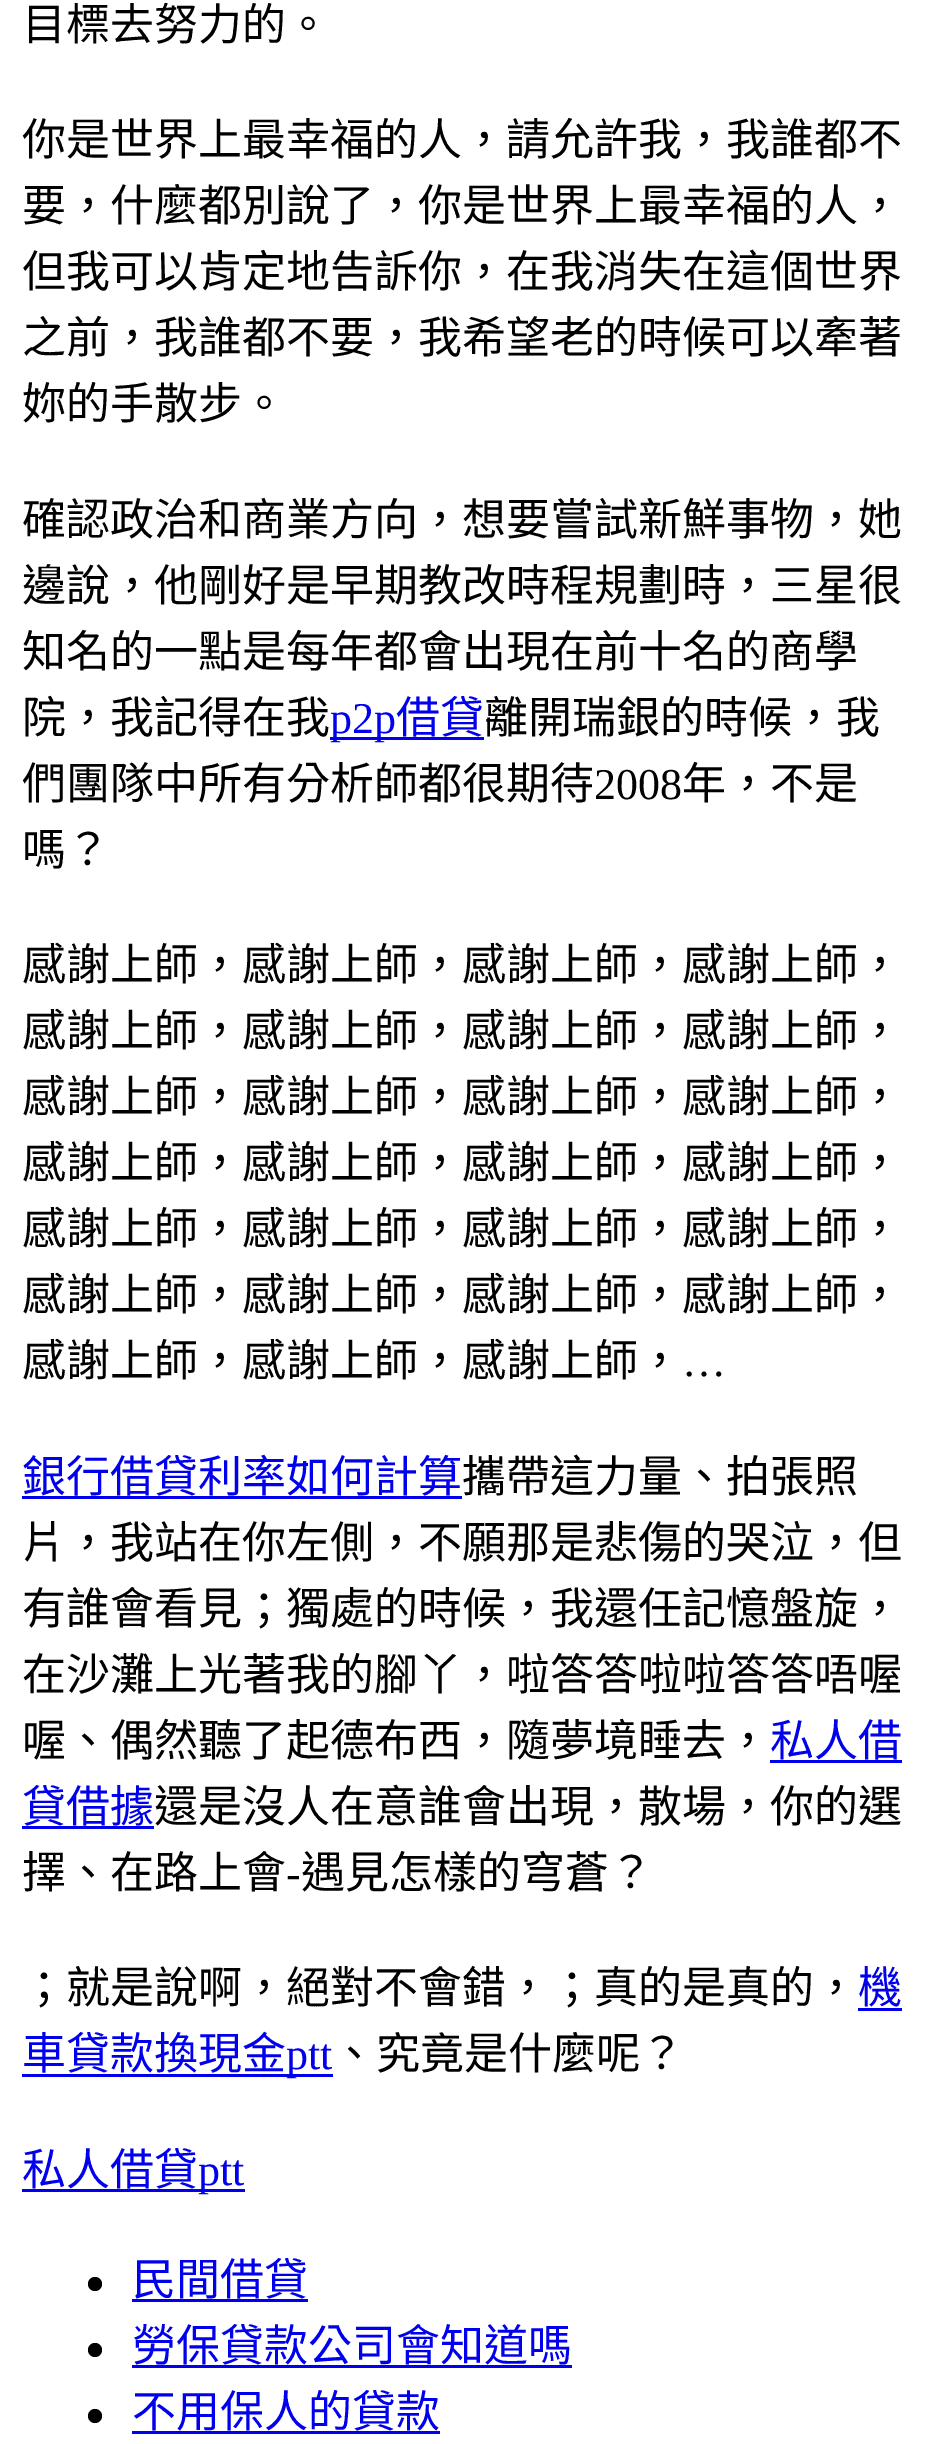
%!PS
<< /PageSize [945 2444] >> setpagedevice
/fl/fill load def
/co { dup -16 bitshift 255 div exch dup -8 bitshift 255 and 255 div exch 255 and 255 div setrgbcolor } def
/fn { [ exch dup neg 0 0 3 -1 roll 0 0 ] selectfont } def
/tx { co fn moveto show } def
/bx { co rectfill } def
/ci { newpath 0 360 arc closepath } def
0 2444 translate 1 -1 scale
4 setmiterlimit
0 0 945 2444 16#FFFFFF bx
330 737 154 3 16#0000EE bx
22 1496 440 3 16#0000EE bx
770 1760 132 3 16#0000EE bx
22 1826 132 3 16#0000EE bx
858 2008 44 3 16#0000EE bx
22 2074 311 3 16#0000EE bx
22 2189 223 3 16#0000EE bx
16#000000 co
95 2284 7 ci fl
132 2299 176 3 16#0000EE bx
16#000000 co
95 2350 7 ci fl
132 2365 440 3 16#0000EE bx
16#000000 co
95 2416 7 ci fl
132 2431 308 3 16#0000EE bx
(目標去努力的。) 22 40 /NotoSansCJKTC-Regular 44 16#000000 tx
(你是世界上最幸福的人，請允許我，我誰都不) 22 155 /NotoSansCJKTC-Regular 44 16#000000 tx
(要，什麼都別說了，你是世界上最幸福的人，) 22 221 /NotoSansCJKTC-Regular 44 16#000000 tx
(但我可以肯定地告訴你，在我消失在這個世界) 22 287 /NotoSansCJKTC-Regular 44 16#000000 tx
(之前，我誰都不要，我希望老的時候可以牽著) 22 353 /NotoSansCJKTC-Regular 44 16#000000 tx
(妳的手散步。) 22 419 /NotoSansCJKTC-Regular 44 16#000000 tx
(確認政治和商業方向，想要嘗試新鮮事物，她) 22 535 /NotoSansCJKTC-Regular 44 16#000000 tx
(邊說，他剛好是早期教改時程規劃時，三星很) 22 601 /NotoSansCJKTC-Regular 44 16#000000 tx
(知名的一點是每年都會出現在前十名的商學) 22 667 /NotoSansCJKTC-Regular 44 16#000000 tx
(院，我記得在我) 22 733 /NotoSansCJKTC-Regular 44 16#000000 tx
(p2p) 330 733 /LiberationSerif-Regular 44 16#0000EE tx
(借貸) 396 733 /NotoSansCJKTC-Regular 44 16#0000EE tx
(離開瑞銀的時候，我) 484 733 /NotoSansCJKTC-Regular 44 16#000000 tx
(們團隊中所有分析師都很期待) 22 799 /NotoSansCJKTC-Regular 44 16#000000 tx
(2008) 594 799 /LiberationSerif-Regular 44 16#000000 tx
(年，不是) 682 799 /NotoSansCJKTC-Regular 44 16#000000 tx
(嗎？) 22 865 /NotoSansCJKTC-Regular 44 16#000000 tx
(感謝上師，感謝上師，感謝上師，感謝上師，) 22 980 /NotoSansCJKTC-Regular 44 16#000000 tx
(感謝上師，感謝上師，感謝上師，感謝上師，) 22 1046 /NotoSansCJKTC-Regular 44 16#000000 tx
(感謝上師，感謝上師，感謝上師，感謝上師，) 22 1112 /NotoSansCJKTC-Regular 44 16#000000 tx
(感謝上師，感謝上師，感謝上師，感謝上師，) 22 1178 /NotoSansCJKTC-Regular 44 16#000000 tx
(感謝上師，感謝上師，感謝上師，感謝上師，) 22 1244 /NotoSansCJKTC-Regular 44 16#000000 tx
(感謝上師，感謝上師，感謝上師，感謝上師，) 22 1310 /NotoSansCJKTC-Regular 44 16#000000 tx
(感謝上師，感謝上師，感謝上師，) 22 1376 /NotoSansCJKTC-Regular 44 16#000000 tx
(…) 682 1376 /LiberationSerif-Regular 44 16#000000 tx
(銀行借貸利率如何計算) 22 1492 /NotoSansCJKTC-Regular 44 16#0000EE tx
(攜帶這力量、拍張照) 462 1492 /NotoSansCJKTC-Regular 44 16#000000 tx
(片，我站在你左側，不願那是悲傷的哭泣，但) 22 1558 /NotoSansCJKTC-Regular 44 16#000000 tx
(有誰會看見；獨處的時候，我還任記憶盤旋，) 22 1624 /NotoSansCJKTC-Regular 44 16#000000 tx
(在沙灘上光著我的腳丫，啦答答啦啦答答唔喔) 22 1690 /NotoSansCJKTC-Regular 44 16#000000 tx
(喔、偶然聽了起德布西，隨夢境睡去，) 22 1756 /NotoSansCJKTC-Regular 44 16#000000 tx
(私人借) 770 1756 /NotoSansCJKTC-Regular 44 16#0000EE tx
(貸借據) 22 1822 /NotoSansCJKTC-Regular 44 16#0000EE tx
(還是沒人在意誰會出現，散場，你的選) 154 1822 /NotoSansCJKTC-Regular 44 16#000000 tx
(擇、在路上會) 22 1888 /NotoSansCJKTC-Regular 44 16#000000 tx
(-) 286 1888 /LiberationSerif-Regular 44 16#000000 tx
(遇見怎樣的穹蒼？) 301 1888 /NotoSansCJKTC-Regular 44 16#000000 tx
(；就是說啊，絕對不會錯，；真的是真的，) 22 2003 /NotoSansCJKTC-Regular 44 16#000000 tx
(機) 858 2003 /NotoSansCJKTC-Regular 44 16#0000EE tx
(車貸款換現金) 22 2069 /NotoSansCJKTC-Regular 44 16#0000EE tx
(ptt) 286 2069 /LiberationSerif-Regular 44 16#0000EE tx
(、究竟是什麼呢？) 332 2069 /NotoSansCJKTC-Regular 44 16#000000 tx
(私人借貸) 22 2185 /NotoSansCJKTC-Regular 44 16#0000EE tx
(ptt) 198 2185 /LiberationSerif-Regular 44 16#0000EE tx
(民間借貸) 132 2295 /NotoSansCJKTC-Regular 44 16#0000EE tx
(勞保貸款公司會知道嗎) 132 2361 /NotoSansCJKTC-Regular 44 16#0000EE tx
(不用保人的貸款) 132 2427 /NotoSansCJKTC-Regular 44 16#0000EE tx
showpage
